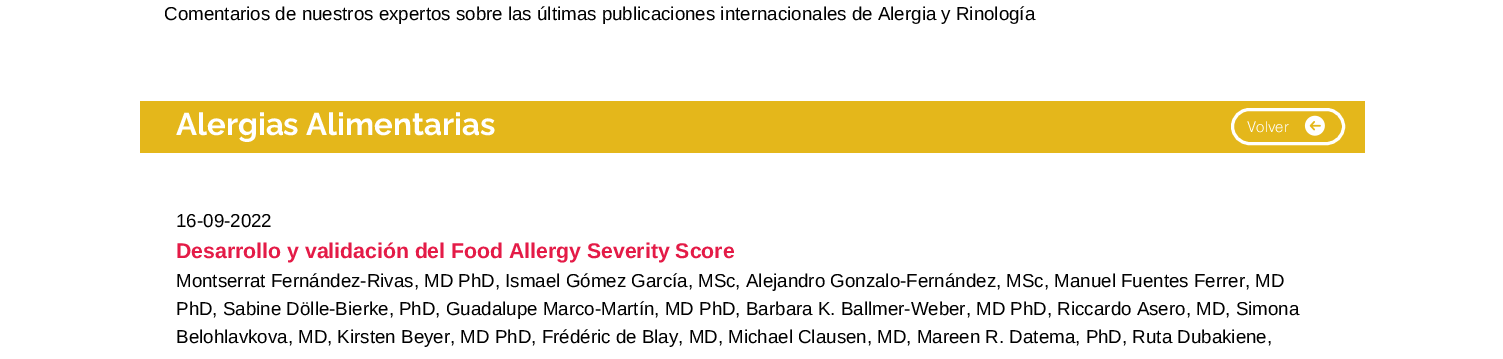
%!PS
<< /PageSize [1503 359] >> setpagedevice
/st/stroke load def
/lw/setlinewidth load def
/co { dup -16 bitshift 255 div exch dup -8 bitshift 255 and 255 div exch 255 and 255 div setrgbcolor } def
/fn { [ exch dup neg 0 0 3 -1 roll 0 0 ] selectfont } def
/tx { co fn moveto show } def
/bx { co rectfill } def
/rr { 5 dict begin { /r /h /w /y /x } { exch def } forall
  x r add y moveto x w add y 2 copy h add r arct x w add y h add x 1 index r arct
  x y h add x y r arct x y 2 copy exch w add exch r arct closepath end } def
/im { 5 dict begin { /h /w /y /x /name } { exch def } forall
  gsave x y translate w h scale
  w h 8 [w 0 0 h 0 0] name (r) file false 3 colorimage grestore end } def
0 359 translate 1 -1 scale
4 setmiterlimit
0 0 1503 359 16#FFFFFF bx
140 101 1225 52 16#E4B71B bx
16#FFFFFF co
3 lw
1232.5 109.5 111 34 17 rr st
(media/1.raw) 1304 115 21 21 im
(Comentarios de nuestros expertos sobre las últimas publicaciones internacionales de Alergia y Rinología) 164 20 /LiberationSans-Regular 18.75 16#000000 tx
(Alergias Alimentarias) 176 135 /Raleway-Bold 31.25 16#FFFFFF tx
(Volver) 1247 132 /helvetica-Light 15 16#FFFFFF tx
(16-09-2022) 176 227 /LiberationSans-Regular 18.75 16#000000 tx
(Desarrollo y validación del Food Allergy Severity Score) 176 258 /LiberationSans-Bold 21.25 16#E41B47 tx
(Montserrat Fernández-Rivas, MD PhD, Ismael Gómez García, MSc, Alejandro Gonzalo-Fernández, MSc, Manuel Fuentes Ferrer, MD) 176 287 /LiberationSans-Regular 18.75 16#000000 tx
(PhD, Sabine Dölle-Bierke, PhD, Guadalupe Marco-Martín, MD PhD, Barbara K. Ballmer-Weber, MD PhD, Riccardo Asero, MD, Simona) 176 315 /LiberationSans-Regular 18.75 16#000000 tx
(Belohlavkova, MD, Kirsten Beyer, MD PhD, Frédéric de Blay, MD, Michael Clausen, MD, Mareen R. Datema, PhD, Ruta Dubakiene,) 176 343 /LiberationSans-Regular 18.75 16#000000 tx
showpage
